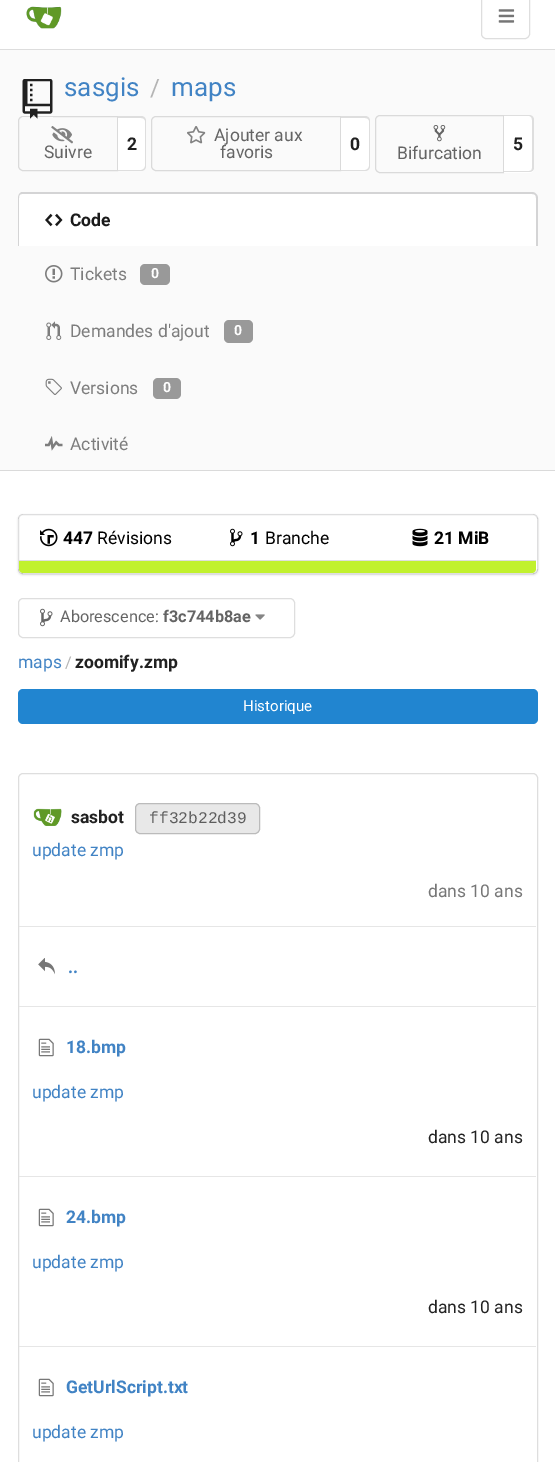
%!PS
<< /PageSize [555 1462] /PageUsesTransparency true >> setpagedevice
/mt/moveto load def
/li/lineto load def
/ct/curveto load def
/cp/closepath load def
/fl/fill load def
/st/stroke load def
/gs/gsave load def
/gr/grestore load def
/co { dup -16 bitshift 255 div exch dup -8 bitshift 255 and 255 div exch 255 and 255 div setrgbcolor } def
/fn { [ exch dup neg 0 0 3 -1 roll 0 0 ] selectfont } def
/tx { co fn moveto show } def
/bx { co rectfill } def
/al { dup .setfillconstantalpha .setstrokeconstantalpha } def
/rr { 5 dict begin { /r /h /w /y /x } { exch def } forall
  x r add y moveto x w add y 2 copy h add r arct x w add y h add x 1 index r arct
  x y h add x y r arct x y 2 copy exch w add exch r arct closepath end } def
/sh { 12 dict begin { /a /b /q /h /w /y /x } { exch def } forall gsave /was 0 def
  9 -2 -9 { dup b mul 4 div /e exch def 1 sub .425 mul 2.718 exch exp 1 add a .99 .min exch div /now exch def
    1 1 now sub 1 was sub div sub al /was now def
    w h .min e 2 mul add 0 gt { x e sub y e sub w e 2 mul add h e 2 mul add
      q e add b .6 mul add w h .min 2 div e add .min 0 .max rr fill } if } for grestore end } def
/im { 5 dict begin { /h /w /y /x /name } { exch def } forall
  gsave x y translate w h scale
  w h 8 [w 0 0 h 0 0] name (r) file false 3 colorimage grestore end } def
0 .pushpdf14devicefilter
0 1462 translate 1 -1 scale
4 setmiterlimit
0 0 555 1462 16#FFFFFF bx
0 49 555 1 16#DDDDDD bx
(media/1.raw) 26 6 36 23 im
16#DEDEDE co
481.5 -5.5 48 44 4.5 rr st
(media/2.raw) 498 9 17 14 im
0 50 555 420 16#FAFAFA bx
16#DADADA co
23 116.5 mt 117.5 116.5 li 117.5 170.5 li 23 170.5 li 20.5 170.5 18.5 168.5 18.5 166 ct 18.5 121 li 18.5 118.5 20.5 116.5 23 116.5 ct cp st
(media/3.raw) 22 79 31 40 im
16#FFFFFF co
118 116 mt 141 116 li 144 116 146 118 146 121 ct 146 166 li 146 169 144 171 141 171 ct 118 171 li cp fl
16#DEDEDE co
118 116 mt 141 116 li 144 116 146 118 146 121 ct 146 166 li 146 169 144 171 141 171 ct 118 171 li cp 118 118 mt 141 118 li 143 118 145 119 145 121 ct 145 166 li 145 168 143 170 141 170 ct 118 170 li cp eofill
(media/4.raw) 51 126 22 18 im
16#DADADA co
156 116.5 mt 340.5 116.5 li 340.5 170.5 li 156 170.5 li 153.5 170.5 151.5 168.5 151.5 166 ct 151.5 121 li 151.5 118.5 153.5 116.5 156 116.5 ct cp st
(media/5.raw) 187 126 19 18 im
16#FFFFFF co
341 116 mt 365 116 li 368 116 370 118 370 121 ct 370 166 li 370 169 368 171 365 171 ct 341 171 li cp fl
16#DEDEDE co
341 116 mt 365 116 li 368 116 370 118 370 121 ct 370 166 li 370 169 368 171 365 171 ct 341 171 li cp 341 118 mt 365 118 li 367 118 369 119 369 121 ct 369 166 li 369 168 367 170 365 170 ct 341 170 li cp eofill
16#DADADA co
380 115.5 mt 503.5 115.5 li 503.5 172.5 li 380 172.5 li 377.5 172.5 375.5 170.5 375.5 168 ct 375.5 120 li 375.5 117.5 377.5 115.5 380 115.5 ct cp st
(media/6.raw) 433 125 13 17 im
16#FFFFFF co
504 115 mt 529 115 li 532 115 534 117 534 120 ct 534 168 li 534 171 532 173 529 173 ct 504 173 li cp fl
16#DEDEDE co
504 115 mt 529 115 li 532 115 534 117 534 120 ct 534 168 li 534 170 532 172 529 172 ct 504 172 li cp 504 116 mt 529 116 li 531 116 532 118 532 120 ct 532 168 li 532 170 531 171 529 171 ct 504 171 li cp eofill
16#FFFFFF co
23 193 mt 533 193 li 536 193 538 195 538 198 ct 538 246 li 18 246 li 18 198 li 18 195 20 193 23 193 ct cp fl
16#D4D4D5 co
22 192 mt 532 192 li 535 192 538 195 538 198 ct 538 246 li 18 246 li 18 198 li 18 195 20 192 22 192 ct cp 22 194 mt 532 194 li 535 194 536 195 536 198 ct 536 246 li 19 246 li 19 198 li 19 195 20 194 22 194 ct cp eofill
(media/7.raw) 45 213 18 14 im
(media/8.raw) 45 265 18 18 im
16#999999 co
140 264 30 21 5 rr fl
(media/9.raw) 46 321 16 19 im
224 320 29 23 5 rr fl
(media/10.raw) 45 378 17 17 im
153 378 28 21 5 rr fl
(media/11.raw) 45 436 18 15 im
0 470 555 1 16#DADADA bx
gs
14 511 mt 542 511 li 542 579 li 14 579 li cp 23 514 mt 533 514 li 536 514 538 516 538 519 ct 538 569 li 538 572 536 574 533 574 ct 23 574 li 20 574 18 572 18 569 ct 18 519 li 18 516 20 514 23 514 ct cp eoclip newpath
16#222426 co
18 515 520 60 5 1 .15 sh
gr
0.15 al
16#222426 co
18.5 514.5 519 59 4.5 rr st
1 al
(media/12.raw) 40 528 18 19 im
(media/13.raw) 230 528 13 19 im
(media/14.raw) 412 528 16 19 im
19 560 517 1 16#DEDEDE bx
16#C1F12E co
19 561 mt 536 561 li 536 569 li 536 571 534 573 532 573 ct 23 573 li 21 573 19 571 19 569 ct cp fl
16#DEDEDE co
18.5 598.5 276 39 4.5 rr st
(media/15.raw) 40 608 13 19 im
(media/16.raw) 255 614 10 6 im
16#2185D0 co
18 689 520 35 5 rr fl
16#DEDEDE co
18.5 773.5 519 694 4.5 rr st
19 926 517 1 16#E6E6E6 bx
(media/17.raw) 33 808 29 18 im
16#E8E8E8 co
135.5 803.5 124 30 4.5 rr gs fl gr
16#BBBBBB co
st
19 1006 517 1 16#E6E6E6 bx
(media/18.raw) 38 958 17 17 im
19 1176 517 1 16#E6E6E6 bx
(media/19.raw) 38 1038 16 19 im
19 1346 517 1 16#E6E6E6 bx
(media/19.raw) 38 1208 16 19 im
(media/19.raw) 38 1378 16 19 im
(sasgis) 64 96 /Roboto-Regular 26 16#4183C4 tx
(/) 150 96 /Roboto-Regular 24 16#B4B4B4 tx
(maps) 171 96 /Roboto-Regular 26 16#4183C4 tx
(2) 127 150 /Roboto-Bold 17.5 16#212121 tx
(Suivre) 44 158 /Roboto-Regular 17.5 16#646464 tx
(Ajouter aux) 214 141 /Roboto-Regular 17.5 16#646464 tx
(favoris) 220 158 /Roboto-Regular 17.5 16#646464 tx
(0) 350 150 /Roboto-Bold 17.5 16#212121 tx
(Bifurcation) 397 159 /Roboto-Regular 17.5 16#646464 tx
(5) 513 150 /Roboto-Bold 17.5 16#212121 tx
(Code) 70 226 /Roboto-Bold 17.5 16#1A1A1A tx
(Tickets) 70 280 /Roboto-Regular 17.5 16#7D7D7D tx
(0) 151 278 /Roboto-Bold 14 16#FFFFFF tx
(Demandes d'ajout) 70 337 /Roboto-Regular 17.5 16#7D7D7D tx
(0) 234 335 /Roboto-Bold 14 16#FFFFFF tx
(Versions) 70 394 /Roboto-Regular 17.5 16#7D7D7D tx
(0) 163 392 /Roboto-Bold 14 16#FFFFFF tx
(Activité) 70 450 /Roboto-Regular 17.5 16#7D7D7D tx
(447) 63 544 /Roboto-Bold 17.5 16#000000 tx
(Révisions) 97 544 /Roboto-Regular 17.5 16#000000 tx
(1) 250 544 /Roboto-Bold 17.5 16#000000 tx
(Branche) 265 544 /Roboto-Regular 17.5 16#000000 tx
(21 MiB) 434 544 /Roboto-Bold 17.5 16#000000 tx
(Aborescence:) 60 622 /Roboto-Regular 16.25 16#646464 tx
(f3c744b8ae) 163 622 /Roboto-Bold 16.25 16#646464 tx
(maps) 18 668 /Roboto-Regular 17.5 16#4183C4 tx
(/) 65 668 /Roboto-Regular 16.25 16#B4B4B4 tx
(zoomify.zmp) 75 668 /Roboto-Bold 17.5 16#212121 tx
(Historique) 243 711 /Roboto-Regular 15 16#FFFFFF tx
(sasbot) 71 823 /Roboto-Bold 17.5 16#212121 tx
(ff32b22d39) 149 823 /LiberationMono-Regular 16.25 16#5D5D5D tx
(update zmp) 32 856 /Roboto-Regular 17.5 16#4183C4 tx
(dans 10 ans) 428 897 /Roboto-Regular 17.5 16#767676 tx
(..) 68 973 /Roboto-Bold 17.5 16#4183C4 tx
(18.bmp) 66 1053 /Roboto-Bold 17.5 16#4183C4 tx
(update zmp) 32 1098 /Roboto-Regular 17.5 16#4183C4 tx
(dans 10 ans) 428 1143 /Roboto-Regular 17.5 16#212121 tx
(24.bmp) 66 1223 /Roboto-Bold 17.5 16#4183C4 tx
(update zmp) 32 1268 /Roboto-Regular 17.5 16#4183C4 tx
(dans 10 ans) 428 1313 /Roboto-Regular 17.5 16#212121 tx
(GetUrlScript.txt) 66 1393 /Roboto-Bold 17.5 16#4183C4 tx
(update zmp) 32 1438 /Roboto-Regular 17.5 16#4183C4 tx
.poppdf14devicefilter showpage
